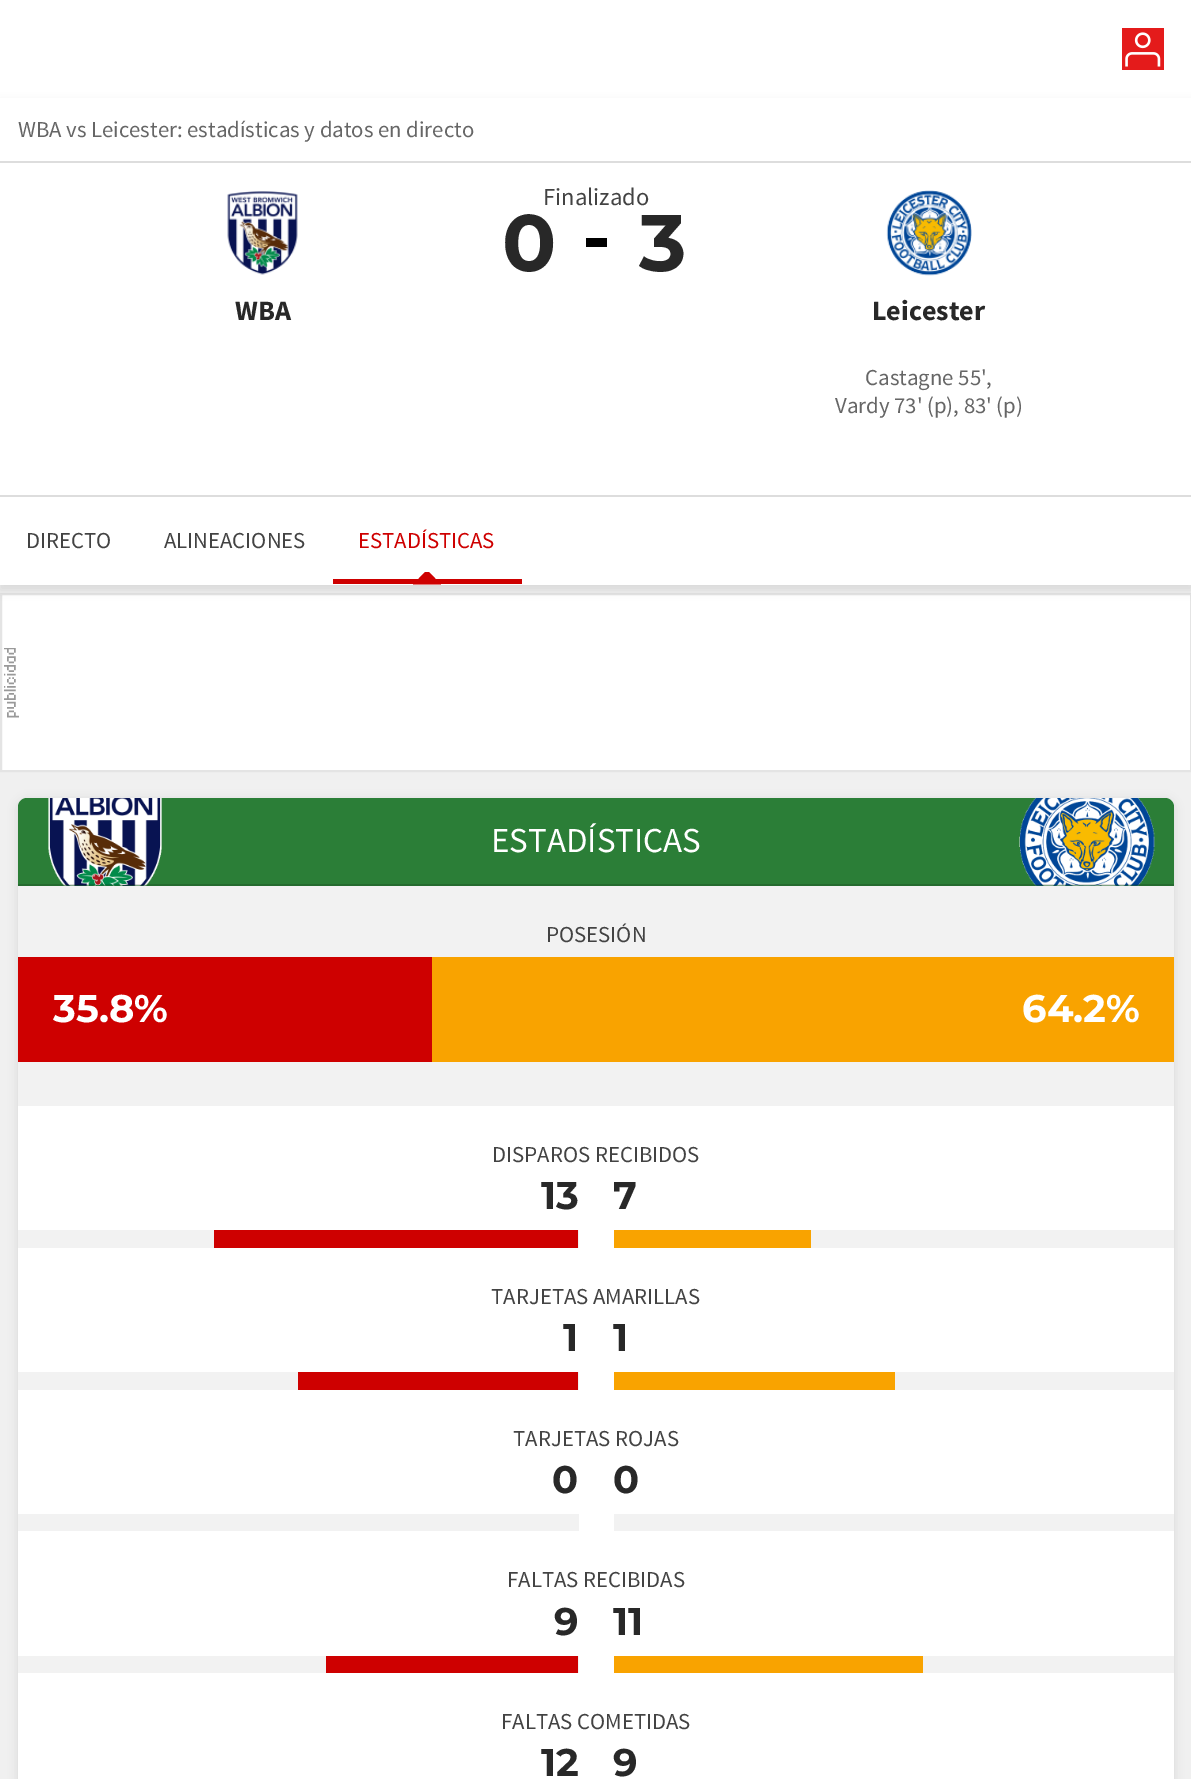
%!PS
<< /PageSize [1191 1779] /PageUsesTransparency true >> setpagedevice
/mt/moveto load def
/li/lineto load def
/ct/curveto load def
/cp/closepath load def
/fl/fill load def
/lw/setlinewidth load def
/co { dup -16 bitshift 255 div exch dup -8 bitshift 255 and 255 div exch 255 and 255 div setrgbcolor } def
/fn { [ exch dup neg 0 0 3 -1 roll 0 0 ] selectfont } def
/tx { co fn moveto show } def
/bx { co rectfill } def
/al { dup .setfillconstantalpha .setstrokeconstantalpha } def
/rr { 5 dict begin { /r /h /w /y /x } { exch def } forall
  x r add y moveto x w add y 2 copy h add r arct x w add y h add x 1 index r arct
  x y h add x y r arct x y 2 copy exch w add exch r arct closepath end } def
/sh { 12 dict begin { /a /b /q /h /w /y /x } { exch def } forall gsave /was 0 def
  9 -2 -9 { dup b mul 4 div /e exch def 1 sub .425 mul 2.718 exch exp 1 add a .99 .min exch div /now exch def
    1 1 now sub 1 was sub div sub al /was now def
    w h .min e 2 mul add 0 gt { x e sub y e sub w e 2 mul add h e 2 mul add
      q e add b .6 mul add w h .min 2 div e add .min 0 .max rr fill } if } for grestore end } def
/im { 5 dict begin { /h /w /y /x /name } { exch def } forall
  gsave x y translate w h scale
  w h 8 [w 0 0 h 0 0] name (r) file false 3 colorimage grestore end } def
0 .pushpdf14devicefilter
0 1779 translate 1 -1 scale
4 setmiterlimit
0 0 1191 1779 16#FFFFFF bx
1122 28 42 42 16#E41B1B bx
(media/1.raw) 1125 32 36 35 im
0 585 1191 1194 16#F0F0F0 bx
2 595 1188 175 16#FFFFFF bx
(media/4.raw) 4 648 15 70 im
16#E4E4E4 co
2 lw
1 594 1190 177 rectstroke
16#000000 co
0 103 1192 487 0 5 .1 sh
0 98 1191 487 16#FFFFFF bx
0 161 1191 2 16#DDDDDD bx
586 238 21 9 16#000000 bx
(media/2.raw) 227 191 71 84 im
(media/3.raw) 886 190 86 86 im
0 495 1191 2 16#DDDDDD bx
16#CE0000 co
441 584.5 mt 413 584.5 li 425 572 li 429 572 li cp fl
333 579 189 5 16#CE0000 bx
16#000000 co
18 800 1156 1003 9 5 .1 sh
16#FFFFFF co
18 798 1156 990 9 rr fl
16#2B7E37 co
27 798 mt 597 798 li 597 886 li 18 886 li 18 807 li 18 802 22 798 27 798 ct cp fl
(media/5.raw) 48 798 114 88 im
0.15 al
18 884 579 2 16#000000 bx
1 al
16#2B7E37 co
597 798 mt 1165 798 li 1170 798 1174 802 1174 807 ct 1174 886 li 597 886 li cp fl
(media/6.raw) 1019 798 136 88 im
0.15 al
597 884 577 2 16#000000 bx
1 al
18 886 1156 220 16#F2F2F2 bx
432 957 742 105 16#F9A300 bx
18 957 414 105 16#CE0000 bx
18 1230 561 18 16#F2F2F2 bx
214 1230 364 18 16#CE0000 bx
811 1230 363 18 16#F2F2F2 bx
614 1230 197 18 16#F9A300 bx
18 1372 561 18 16#F2F2F2 bx
298 1372 280 18 16#CE0000 bx
895 1372 279 18 16#F2F2F2 bx
614 1372 281 18 16#F9A300 bx
18 1514 561 17 16#F2F2F2 bx
614 1514 560 17 16#F2F2F2 bx
18 1656 561 17 16#F2F2F2 bx
326 1656 252 17 16#CE0000 bx
923 1656 251 17 16#F2F2F2 bx
614 1656 309 17 16#F9A300 bx
(WBA vs Leicester: estadísticas y datos en directo) 18 137 /SourceSansPro-Regular 22.75 16#666666 tx
(Finalizado) 543 205 /SourceSansPro-Regular 24.5 16#434343 tx
(0) 502 271 /Montserrat-Bold 80 16#282828 tx
(WBA) 235 320 /SourceSansPro-Bold 28 16#282828 tx
(3) 639 271 /Montserrat-Bold 80 16#282828 tx
(Leicester) 872 320 /SourceSansPro-Bold 28 16#282828 tx
(Castagne 55',) 865 385 /SourceSansPro-Regular 22.75 16#666666 tx
(Vardy 73' \(p\), 83' \(p\)) 835 413 /SourceSansPro-Regular 22.75 16#666666 tx
(DIRECTO) 26 548 /SourceSansPro-Regular 22.75 16#434343 tx
(ALINEACIONES) 164 548 /SourceSansPro-Regular 22.75 16#434343 tx
(ESTADÍSTICAS) 358 548 /SourceSansPro-Regular 22.75 16#CE0000 tx
(ESTADÍSTICAS) 491 852 /SourceSansPro-Regular 35 16#FFFFFF tx
(POSESIÓN) 546 942 /SourceSansPro-Regular 22.75 16#434343 tx
(35.8%) 53 1022 /Montserrat-Bold 38.5 16#FFFFFF tx
(64.2%) 1022 1022 /Montserrat-Bold 38.5 16#FFFFFF tx
(DISPAROS RECIBIDOS) 492 1162 /SourceSansPro-Regular 22.75 16#434343 tx
(13) 541 1209 /Montserrat-Bold 38.5 16#282828 tx
(7) 613 1209 /Montserrat-Bold 38.5 16#282828 tx
(TARJETAS AMARILLAS) 491 1304 /SourceSansPro-Regular 22.75 16#434343 tx
(1) 563 1351 /Montserrat-Bold 38.5 16#282828 tx
(1) 613 1351 /Montserrat-Bold 38.5 16#282828 tx
(TARJETAS ROJAS) 513 1446 /SourceSansPro-Regular 22.75 16#434343 tx
(0) 552 1493 /Montserrat-Bold 38.5 16#282828 tx
(0) 613 1493 /Montserrat-Bold 38.5 16#282828 tx
(FALTAS RECIBIDAS) 507 1587 /SourceSansPro-Regular 22.75 16#434343 tx
(9) 554 1635 /Montserrat-Bold 38.5 16#282828 tx
(11) 613 1635 /Montserrat-Bold 38.5 16#282828 tx
(FALTAS COMETIDAS) 501 1729 /SourceSansPro-Regular 22.75 16#434343 tx
(12) 541 1776 /Montserrat-Bold 38.5 16#282828 tx
(9) 613 1776 /Montserrat-Bold 38.5 16#282828 tx
.poppdf14devicefilter showpage
